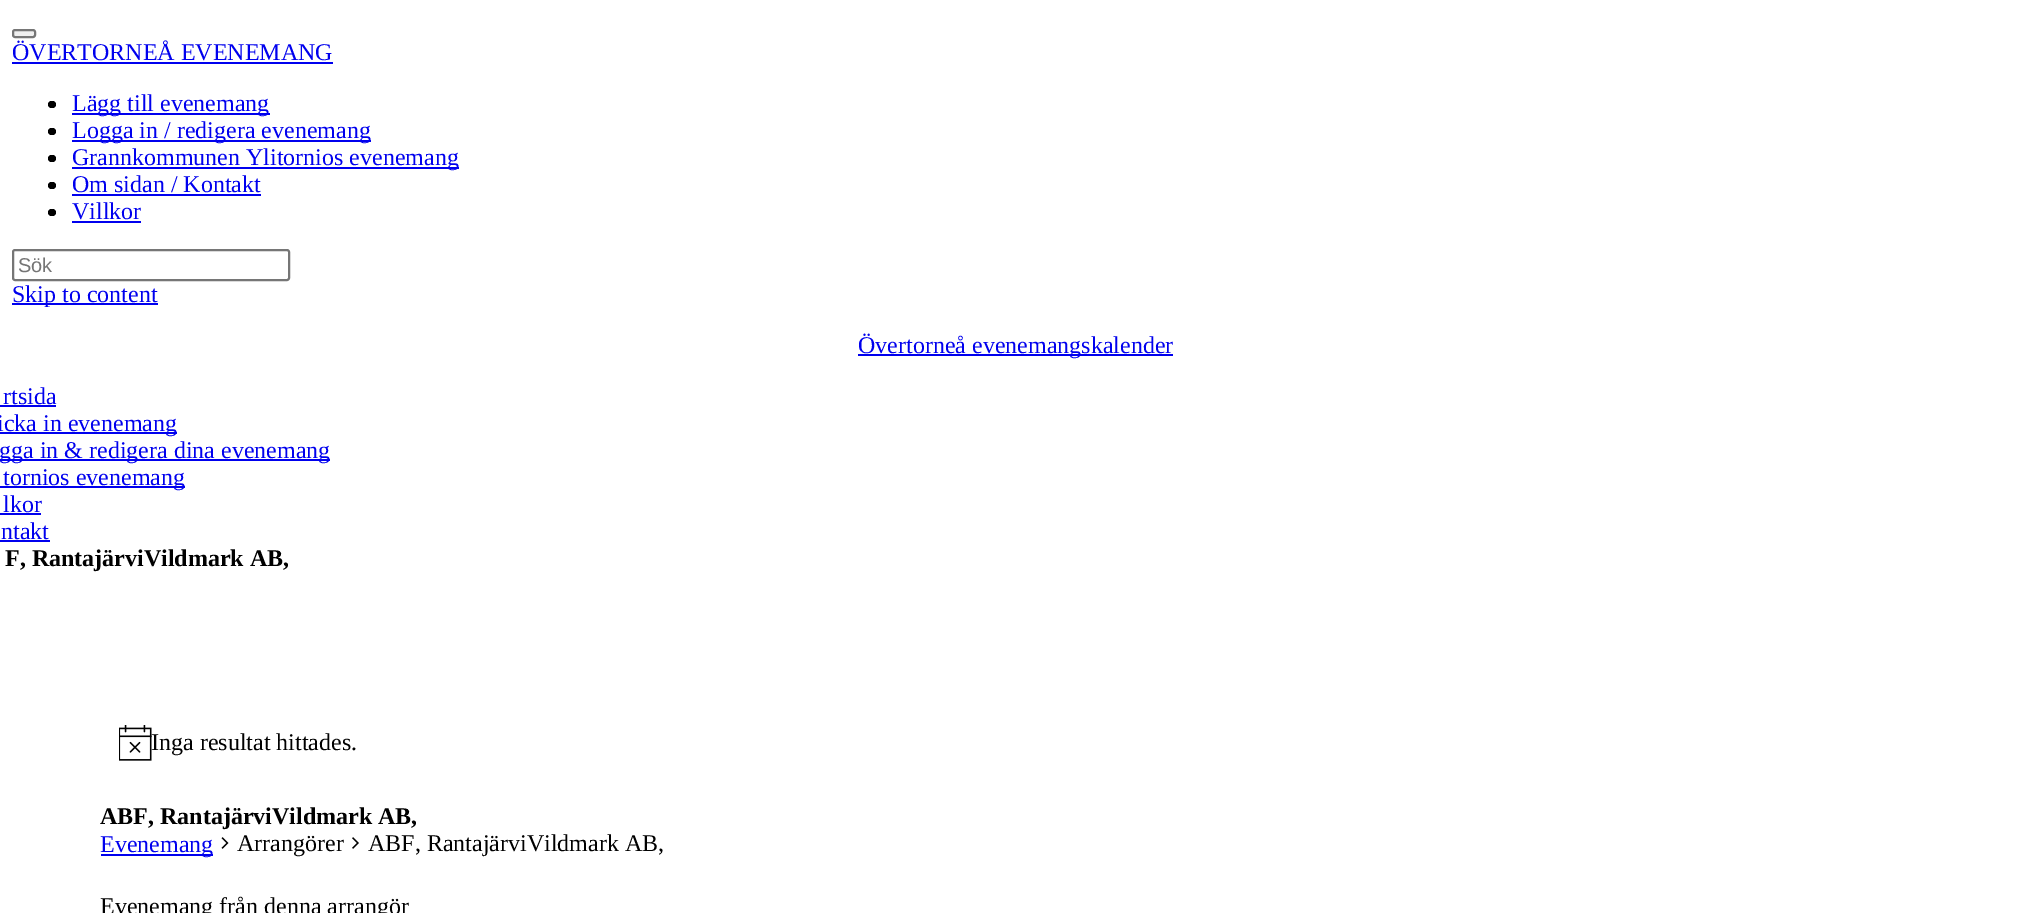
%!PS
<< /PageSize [2031 913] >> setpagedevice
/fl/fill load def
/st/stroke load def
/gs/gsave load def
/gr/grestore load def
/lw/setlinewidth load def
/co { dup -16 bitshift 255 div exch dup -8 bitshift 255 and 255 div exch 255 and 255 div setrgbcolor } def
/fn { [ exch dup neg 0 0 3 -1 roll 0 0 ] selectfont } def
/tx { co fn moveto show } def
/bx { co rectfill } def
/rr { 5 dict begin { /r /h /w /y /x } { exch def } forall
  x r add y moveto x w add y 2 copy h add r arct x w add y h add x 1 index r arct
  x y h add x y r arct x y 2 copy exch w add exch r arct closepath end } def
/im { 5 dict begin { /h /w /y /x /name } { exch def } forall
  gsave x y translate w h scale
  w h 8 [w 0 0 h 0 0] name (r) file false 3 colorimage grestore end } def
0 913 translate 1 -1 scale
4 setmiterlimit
0 0 2031 913 16#FFFFFF bx
16#EFEFEF co
13 30 22 7 2 rr gs fl gr
16#767676 co
2 lw
st
12 62 321 2 16#0000EE bx
16#000000 co
48 101 8 7 3.5 rr fl
72 113 198 2 16#0000EE bx
16#000000 co
48 128 8 7 3.5 rr fl
72 140 299 2 16#0000EE bx
16#000000 co
48 155 8 7 3.5 rr fl
72 167 387 2 16#0000EE bx
16#000000 co
48 182 8 7 3.5 rr fl
72 194 189 2 16#0000EE bx
16#000000 co
48 209 8 7 3.5 rr fl
72 221 69 2 16#0000EE bx
16#767676 co
13 250 276 30 2 rr st
12 303 146 2 16#0000EE bx
858 354 315 2 16#0000EE bx
0 405 56 2 16#0000EE bx
0 432 177 2 16#0000EE bx
0 459 330 2 16#0000EE bx
0 486 185 2 16#0000EE bx
0 513 41 2 16#0000EE bx
0 540 50 2 16#0000EE bx
101 854 112 2 16#0000EE bx
(media/2.raw) 221 837 8 12 im
(media/3.raw) 352 837 7 12 im
(ÖVERTORNEÅ EVENEMANG) 12 60 /LiberationSerif-Regular 24 16#0000EE tx
(Lägg till evenemang) 72 111 /LiberationSerif-Regular 24 16#0000EE tx
(Logga in / redigera evenemang) 72 138 /LiberationSerif-Regular 24 16#0000EE tx
(Grannkommunen Ylitornios evenemang) 72 165 /LiberationSerif-Regular 24 16#0000EE tx
(Om sidan / Kontakt) 72 192 /LiberationSerif-Regular 24 16#0000EE tx
(Villkor) 72 219 /LiberationSerif-Regular 24 16#0000EE tx
(Sök) 18 272 /LiberationSans-Regular 20 16#757575 tx
(Skip to content) 12 302 /LiberationSerif-Regular 24 16#0000EE tx
(Övertorneå evenemangskalender) 858 353 /LiberationSerif-Regular 24 16#0000EE tx
(rtsida) 3 404 /LiberationSerif-Regular 24 16#0000EE tx
(icka in evenemang) -3 431 /LiberationSerif-Regular 24 16#0000EE tx
(gga in & redigera dina evenemang) -1 458 /LiberationSerif-Regular 24 16#0000EE tx
(tornios evenemang) 3 485 /LiberationSerif-Regular 24 16#0000EE tx
(lkor) 3 512 /LiberationSerif-Regular 24 16#0000EE tx
(ntakt) 1 539 /LiberationSerif-Regular 24 16#0000EE tx
(F, RantajärviVildmark AB,) 5 566 /LiberationSerif-Bold 24 16#000000 tx
(Inga resultat hittades.) 151 750 /LiberationSerif-Regular 24 16#000000 tx
(media/1.raw) 119 725 33 36 im
(ABF, RantajärviVildmark AB,) 100 824 /LiberationSerif-Bold 24 16#000000 tx
(Evenemang) 100 852 /LiberationSerif-Regular 24 16#0000EE tx
(Arrangörer) 237 851 /LiberationSerif-Regular 24 16#000000 tx
(ABF, RantajärviVildmark AB,) 368 851 /LiberationSerif-Regular 24 16#000000 tx
(Evenemang från denna arrangör) 100 914 /LiberationSerif-Regular 24 16#000000 tx
showpage
